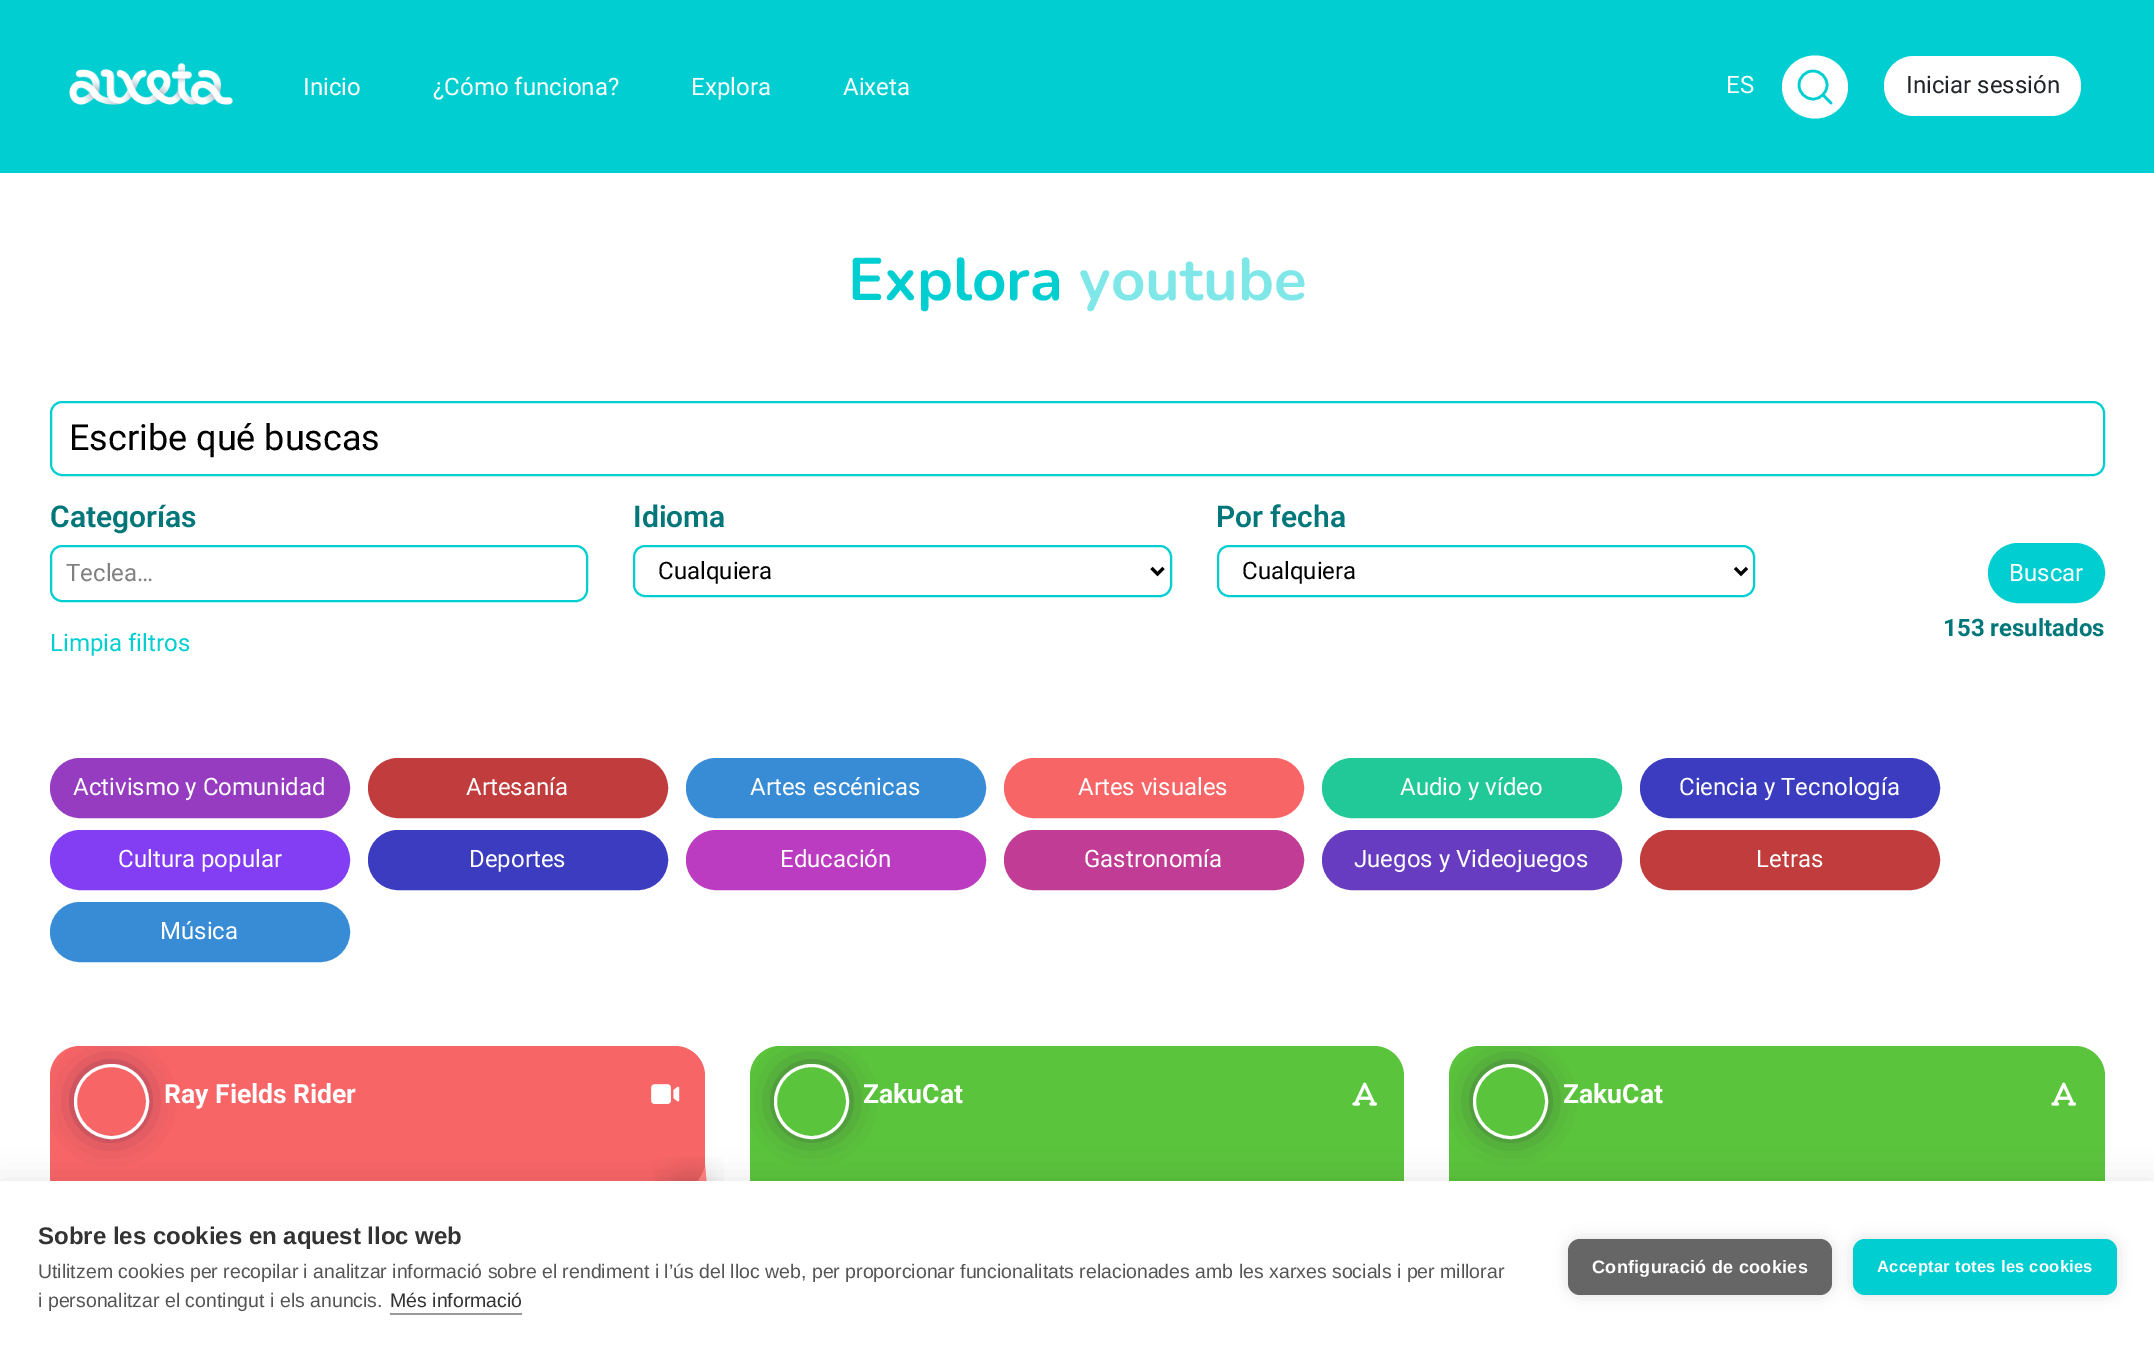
%!PS
<< /PageSize [2154 1352] /PageUsesTransparency true >> setpagedevice
/mt/moveto load def
/li/lineto load def
/ct/curveto load def
/cp/closepath load def
/fl/fill load def
/st/stroke load def
/gs/gsave load def
/gr/grestore load def
/lw/setlinewidth load def
/co { dup -16 bitshift 255 div exch dup -8 bitshift 255 and 255 div exch 255 and 255 div setrgbcolor } def
/fn { [ exch dup neg 0 0 3 -1 roll 0 0 ] selectfont } def
/tx { co fn moveto show } def
/bx { co rectfill } def
/al { dup .setfillconstantalpha .setstrokeconstantalpha } def
/ci { newpath 0 360 arc closepath } def
/rr { 5 dict begin { /r /h /w /y /x } { exch def } forall
  x r add y moveto x w add y 2 copy h add r arct x w add y h add x 1 index r arct
  x y h add x y r arct x y 2 copy exch w add exch r arct closepath end } def
/sh { 12 dict begin { /a /b /q /h /w /y /x } { exch def } forall gsave /was 0 def
  9 -2 -9 { dup b mul 4 div /e exch def 1 sub .425 mul 2.718 exch exp 1 add a .99 .min exch div /now exch def
    1 1 now sub 1 was sub div sub al /was now def
    w h .min e 2 mul add 0 gt { x e sub y e sub w e 2 mul add h e 2 mul add
      q e add b .6 mul add w h .min 2 div e add .min 0 .max rr fill } if } for grestore end } def
/im { 5 dict begin { /h /w /y /x /name } { exch def } forall
  gsave x y translate w h scale
  w h 8 [w 0 0 h 0 0] name (r) file false 3 colorimage grestore end } def
0 .pushpdf14devicefilter
0 1352 translate 1 -1 scale
4 setmiterlimit
0 0 2154 1352 16#FFFFFF bx
0 0 2154 173 16#00CED1 bx
(media/1.raw) 69 62 164 43 im
16#FFFFFF co
1815 55.5 mt 1833 55.5 1848 69.5 1848 87 ct 1848 104.5 1833 118.5 1815 118.5 ct 1797 118.5 1782 104.5 1782 87 ct 1782 69.5 1797 55.5 1815 55.5 ct cp fl
16#00CED1 co
2.6 lw
1813 85 14 ci st
1 setlinecap
1 setlinejoin
1831 103 mt 1823 95 li st
16#FFFFFF co
1884 56 197 60 30 rr fl
16#00CED1 co
2 lw
0 setlinecap
0 setlinejoin
51 402 2053 73 11 rr st
51 546 536 55 11 rr st
634 546 537 50 11 rr st
16#000000 co
3 lw
1151.5 568 mt 1157.5 574 li 1163.5 568 li st
16#00CED1 co
2 lw
1218 546 536 50 11 rr st
16#000000 co
3 lw
1735 568 mt 1741 574 li 1747 568 li st
16#00CED1 co
1989.5 544.5 114 57 28.5 rr gs fl gr
st
16#953CC1 co
51.5 759.5 297 57 28.5 rr gs fl gr
st
16#C13C3C co
369.5 759.5 297 57 28.5 rr gs fl gr
st
16#388CD5 co
687.5 759.5 297 57 28.5 rr gs fl gr
st
16#F86567 co
1005.5 759.5 297 57 28.5 rr gs fl gr
st
16#20C997 co
1323.5 759.5 297 57 28.5 rr gs fl gr
st
16#3C3CC1 co
1641.5 759.5 297 57 28.5 rr gs fl gr
st
16#833DF3 co
51.5 831.5 297 57 28.5 rr gs fl gr
st
16#3C3CC1 co
369.5 831.5 297 57 28.5 rr gs fl gr
st
16#BC3CC1 co
687.5 831.5 297 57 28.5 rr gs fl gr
st
16#C13C95 co
1005.5 831.5 297 57 28.5 rr gs fl gr
st
16#683CC1 co
1323.5 831.5 297 57 28.5 rr gs fl gr
st
16#C13C3C co
1641.5 831.5 297 57 28.5 rr gs fl gr
st
16#388CD5 co
51.5 903.5 297 57 28.5 rr gs fl gr
st
16#F86567 co
50 1046 655 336 30 rr fl
gs
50 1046 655 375 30 rr clip newpath
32 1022 mt 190 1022 li 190 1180 li 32 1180 li cp 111.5 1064 mt 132 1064 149 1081 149 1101.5 ct 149 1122 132 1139 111.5 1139 ct 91 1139 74 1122 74 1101.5 ct 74 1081 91 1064 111.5 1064 ct cp eoclip newpath
16#2E163D co
81 1071 60 60 30 16 .7 sh
gr
16#FFFFFF co
111.5 1101.5 36 ci st
(media/2.raw) 651 1084 29 20 im
(media/3.raw) 653 1157 71 24 im
16#5AC43C co
750 1046 654 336 30 rr fl
gs
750 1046 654 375 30 rr clip newpath
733 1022 mt 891 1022 li 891 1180 li 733 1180 li cp 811.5 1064 mt 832 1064 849 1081 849 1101.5 ct 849 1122 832 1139 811.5 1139 ct 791 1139 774 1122 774 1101.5 ct 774 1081 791 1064 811.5 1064 ct cp eoclip newpath
16#2E163D co
782 1071 60 60 30 16 .7 sh
gr
16#FFFFFF co
811.5 1101.5 36 ci st
(media/4.raw) 1352 1082 25 24 im
16#5AC43C co
1449 1046 656 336 30 rr fl
gs
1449 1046 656 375 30 rr clip newpath
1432 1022 mt 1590 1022 li 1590 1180 li 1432 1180 li cp 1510.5 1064 mt 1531 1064 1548 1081 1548 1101.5 ct 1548 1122 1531 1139 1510.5 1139 ct 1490 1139 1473 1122 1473 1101.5 ct 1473 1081 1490 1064 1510.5 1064 ct cp eoclip newpath
16#2E163D co
1481 1071 60 60 30 16 .7 sh
gr
16#FFFFFF co
1510.5 1101.5 36 ci st
(media/4.raw) 2051 1082 25 24 im
16#000000 co
0 1181 2154 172 0 15 .1 sh
0 1181 2154 171 16#FFFFFF bx
390 1313 132 2 16#999999 bx
16#000000 co
1568 1239 264 56 12 7.5 .12 sh
16#666666 co
1568 1239 264 56 12 rr fl
16#000000 co
1853 1239 264 56 12 7.5 .12 sh
16#00CED1 co
1853 1239 264 56 12 rr fl
(Inicio) 303 95 /Roboto-Regular 24 16#FFFFFF tx
(¿Cómo funciona?) 433 95 /Roboto-Regular 24 16#FFFFFF tx
(Explora) 691 95 /Roboto-Regular 24 16#FFFFFF tx
(Aixeta) 843 95 /Roboto-Regular 24 16#FFFFFF tx
(ES) 1726 93 /Roboto-Regular 24 16#FFFFFF tx
(Iniciar sessión) 1906 93 /Roboto-Regular 24 16#212529 tx
(Explora) 848 300 /Nunito-Bold 60 16#00CED1 tx
(youtube) 1079 300 /Nunito-Bold 60 16#80E7E8 tx
(Escribe qué buscas) 69 450 /Roboto-Regular 36 16#000000 tx
(Categorías) 50 527 /Roboto-SemiBold 30 16#017779 tx
(Teclea…) 66 581 /Roboto-Regular 24 16#808080 tx
(Idioma) 633 527 /Roboto-SemiBold 30 16#017779 tx
(Cualquiera) 658 579 /Roboto-Regular 24 16#000000 tx
(Por fecha) 1216 527 /Roboto-SemiBold 30 16#017779 tx
(Cualquiera) 1242 579 /Roboto-Regular 24 16#000000 tx
(Limpia filtros) 50 651 /Roboto-Regular 24 16#00CED1 tx
(Buscar) 2009 581 /Roboto-Regular 24 16#FFFFFF tx
(153 resultados) 1943 636 /Roboto-Bold 24 16#017779 tx
(Activismo y Comunidad) 73 795 /Roboto-Regular 24 16#FFFFFF tx
(Artesanía) 466 795 /Roboto-Regular 24 16#FFFFFF tx
(Artes escénicas) 750 795 /Roboto-Regular 24 16#FFFFFF tx
(Artes visuales) 1078 795 /Roboto-Regular 24 16#FFFFFF tx
(Audio y vídeo) 1400 795 /Roboto-Regular 24 16#FFFFFF tx
(Ciencia y Tecnología) 1679 795 /Roboto-Regular 24 16#FFFFFF tx
(Cultura popular) 118 867 /Roboto-Regular 24 16#FFFFFF tx
(Deportes) 469 867 /Roboto-Regular 24 16#FFFFFF tx
(Educación) 780 867 /Roboto-Regular 24 16#FFFFFF tx
(Gastronomía) 1084 867 /Roboto-Regular 24 16#FFFFFF tx
(Juegos y Videojuegos) 1354 867 /Roboto-Regular 24 16#FFFFFF tx
(Letras) 1756 867 /Roboto-Regular 24 16#FFFFFF tx
(Música) 160 939 /Roboto-Regular 24 16#FFFFFF tx
(Ray Fields Rider) 164 1103 /Roboto-Bold 26.5 16#FFFFFF tx
(ZakuCat) 863 1103 /Roboto-Bold 26.5 16#FFFFFF tx
(ZakuCat) 1563 1103 /Roboto-Bold 26.5 16#FFFFFF tx
(Sobre les cookies en aquest lloc web) 38 1244 /LiberationSans-Bold 24 16#333333 tx
(Utilitzem cookies per recopilar i analitzar informació sobre el rendiment i l’ús del lloc web, per proporcionar funcionalitats relacionades amb les xarxes socials i per millorar) 38 1278 /LiberationSans-Regular 19.5 16#555555 tx
(i personalitzar el contingut i els anuncis.) 38 1307 /LiberationSans-Regular 19.5 16#555555 tx
(Més informació) 390 1307 /LiberationSans-Regular 19.5 16#333333 tx
/LiberationSans-Bold 18 fn
16#FFFFFF co
1592 1273 mt .3 0 (Configuració de cookies) ashow
/LiberationSans-Bold 16.5 fn
1877 1272 mt .3 0 (Acceptar totes les cookies) ashow
.poppdf14devicefilter showpage
